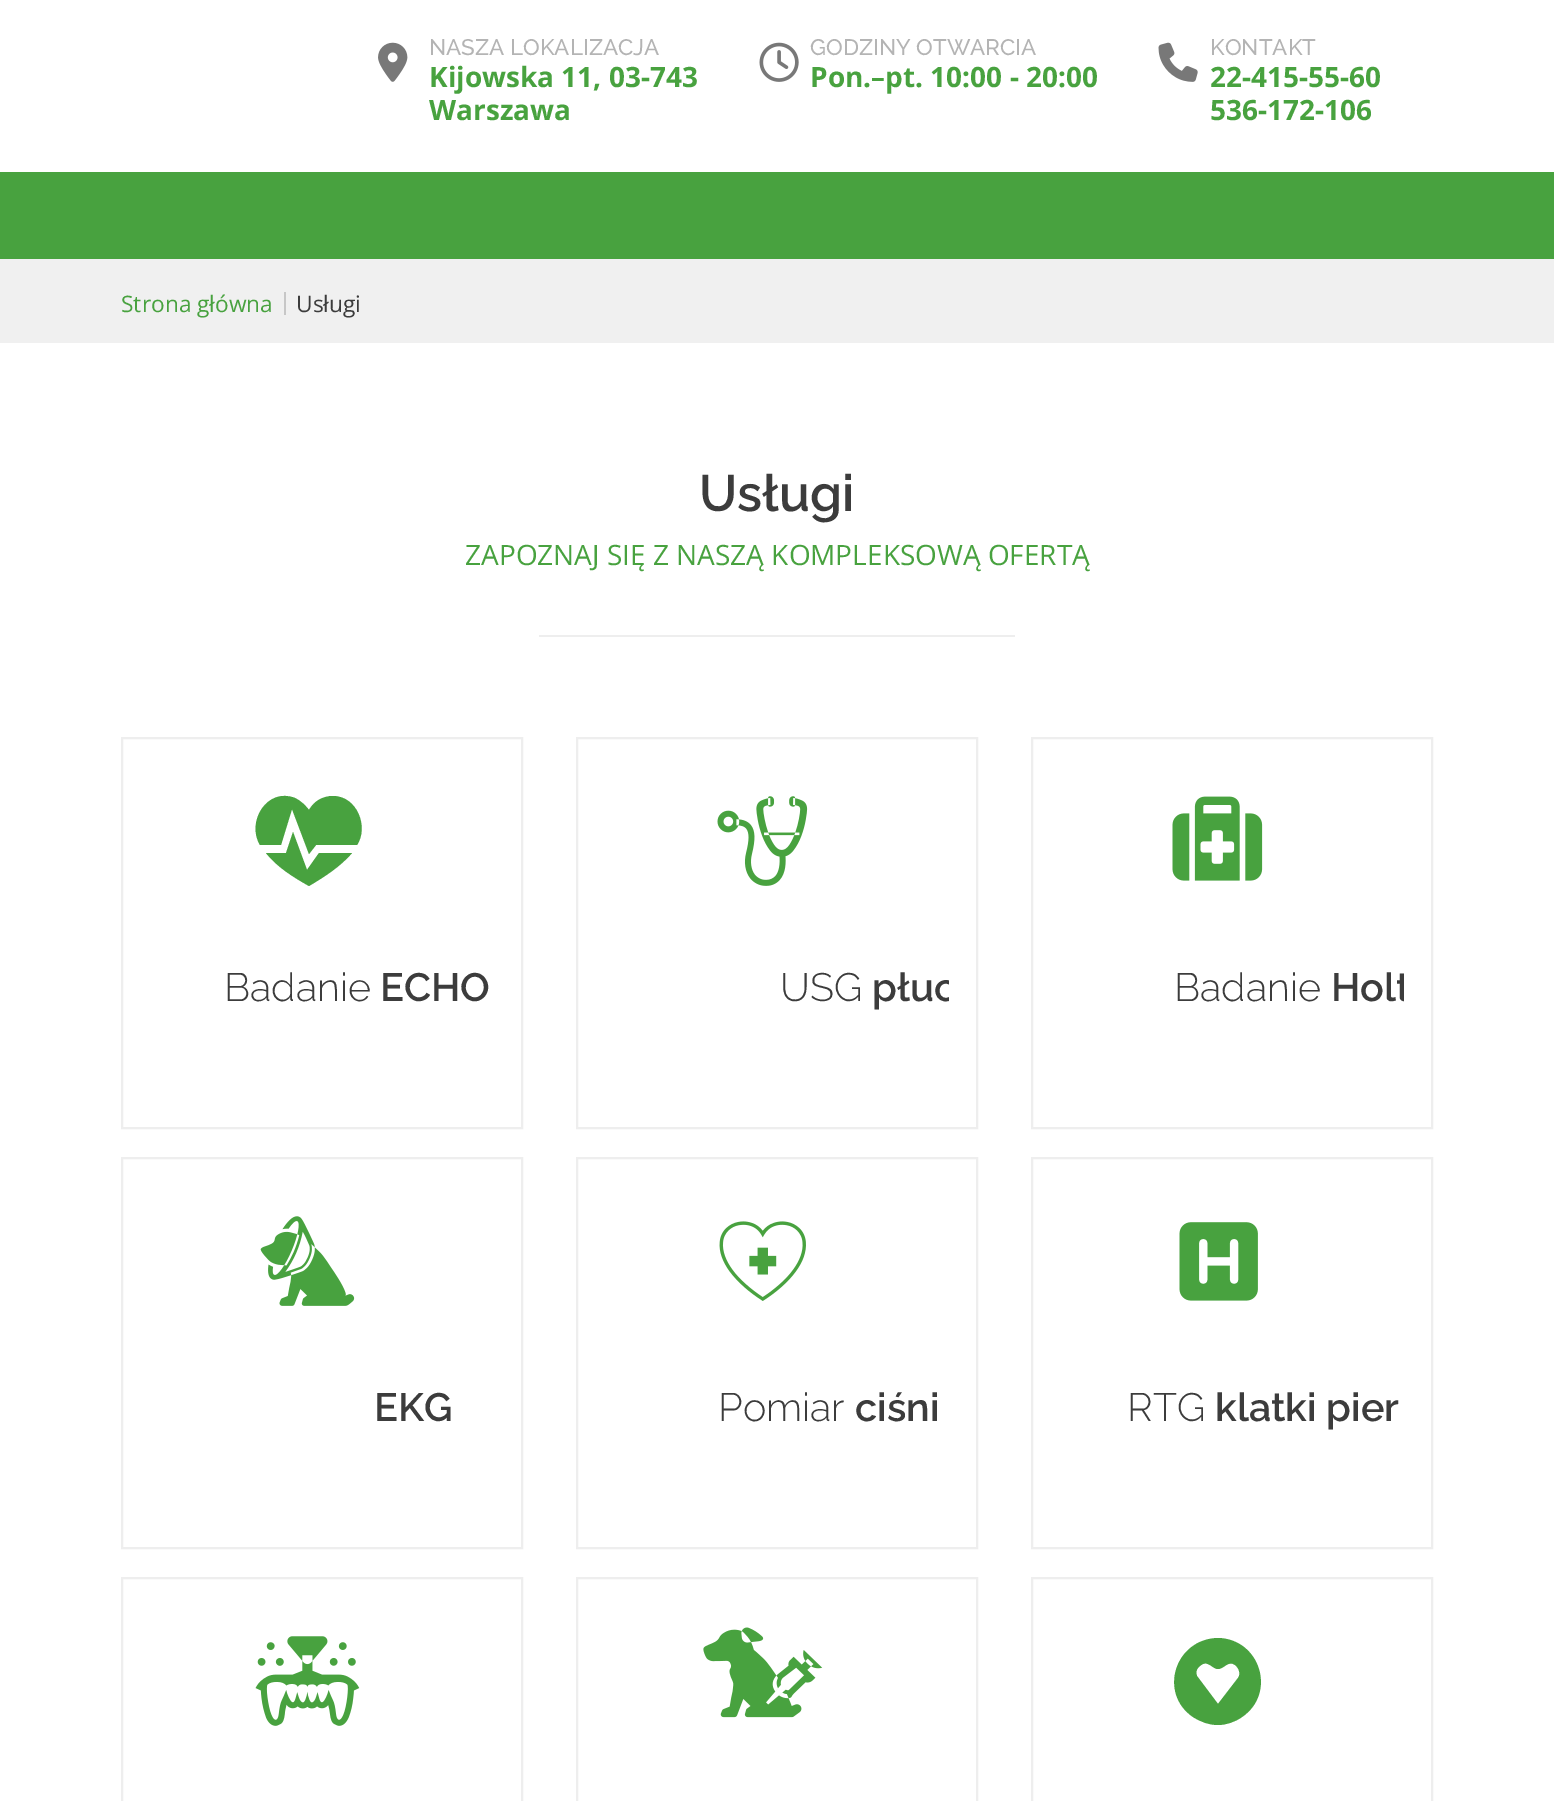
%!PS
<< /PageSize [1554 1801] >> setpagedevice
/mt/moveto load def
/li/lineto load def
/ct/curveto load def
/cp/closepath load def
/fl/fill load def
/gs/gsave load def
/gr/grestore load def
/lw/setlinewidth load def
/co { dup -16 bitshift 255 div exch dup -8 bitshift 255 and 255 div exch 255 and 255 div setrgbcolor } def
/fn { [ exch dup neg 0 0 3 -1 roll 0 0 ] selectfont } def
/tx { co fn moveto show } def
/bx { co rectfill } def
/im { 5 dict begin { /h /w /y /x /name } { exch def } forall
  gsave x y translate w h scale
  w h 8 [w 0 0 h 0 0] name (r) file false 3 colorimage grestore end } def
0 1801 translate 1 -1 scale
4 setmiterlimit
0 0 1554 1801 16#FFFFFF bx
(media/1.raw) 378 42 30 40 im
(media/2.raw) 759 42 40 40 im
(media/3.raw) 1158 42 40 40 im
0 172 1554 87 16#48A23F bx
0 259 1554 84 16#F0F0F0 bx
284 292 2 23 16#C7C7C7 bx
539 635 476 2 16#EEEEEE bx
2 lw
122 738 400 390 rectstroke
16#48A23F co
307 870 mt 293 832 li 286 853 li 266 853 li 277 867 293 877 309 886 ct 324 877 340 867 352 853 ct 319 853 li cp 333 796 mt 323 796 314 801 309 810 ct 305 805 301 801 295 798 ct 267 787 246 822 260 845 ct 281 845 li 292 809 li 309 854 li 316 845 li 357 845 li 369 827 357 796 333 796 ct cp fl
16#EEEEEE co
577 738 400 390 rectstroke
(media/4.raw) 717 796 91 90 im
1032 738 400 390 rectstroke
(media/5.raw) 1172 796 91 85 im
122 1158 400 390 rectstroke
(media/6.raw) 260 1216 95 90 im
577 1158 400 390 rectstroke
(media/7.raw) 719 1221 87 80 im
1032 1158 400 390 rectstroke
(media/8.raw) 1179 1222 79 79 im
122 1578 400 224 rectstroke
(media/9.raw) 255 1636 105 90 im
577 1578 400 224 rectstroke
(media/10.raw) 703 1627 120 91 im
1032 1578 400 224 rectstroke
16#48A23F co
1218 1638 mt 1175 1639 1158 1693 1193 1717 ct 1201 1722 1209 1725 1218 1725 ct 1226 1725 1235 1722 1242 1717 ct 1277 1693 1260 1639 1218 1638 ct cp 1238 1678 mt 1218 1704 li 1197 1676 li 1196 1673 1196 1669 1199 1667 ct 1207 1658 1212 1669 1218 1669 ct 1224 1669 1228 1660 1235 1665 ct 1239 1668 1241 1674 1238 1678 ct cp fl
(NASZA LOKALIZACJA) 429 55 /Raleway-Medium 22.4 16#B4B4B4 tx
(Kijowska 11, 03-743) 429 87 /OpenSans-Bold 28 16#48A23F tx
(Warszawa) 429 120 /OpenSans-Bold 28 16#48A23F tx
(GODZINY OTWARCIA) 810 55 /Raleway-Medium 22.4 16#B4B4B4 tx
(Pon.–pt. 10:00 - 20:00) 810 87 /OpenSans-Bold 28 16#48A23F tx
(KONTAKT) 1210 55 /Raleway-Medium 22.4 16#B4B4B4 tx
(22-415-55-60) 1210 87 /OpenSans-Bold 28 16#48A23F tx
(536-172-106) 1210 120 /OpenSans-Bold 28 16#48A23F tx
(Strona główna) 121 312 /OpenSans-Regular 22.75 16#48A23F tx
(Usługi) 296 312 /OpenSans-Regular 22.75 16#3C3C3C tx
(Usługi) 699 511 /Raleway-SemiBold 51 16#3C3C3C tx
(ZAPOZNAJ SIĘ Z NASZĄ KOMPLEKSOWĄ OFERTĄ) 465 565 /OpenSans-Regular 28 16#48A23F tx
(Badanie) 224 1001 /Raleway-Light 39.5 16#3C3C3C tx
(ECHO) 380 1001 /Raleway-SemiBold 39.5 16#3C3C3C tx
(USG) 780 1001 /Raleway-Light 39.5 16#3C3C3C tx
gs
606 926 343 150 rectclip
(płuc) 872 1001 /Raleway-SemiBold 39.5 16#3C3C3C tx
gr
(Badanie) 1174 1001 /Raleway-Light 39.5 16#3C3C3C tx
gs
1061 926 343 150 rectclip
(Holt) 1331 1001 /Raleway-SemiBold 39.5 16#3C3C3C tx
gr
(EKG) 374 1421 /Raleway-SemiBold 39.5 16#3C3C3C tx
(Pomiar) 718 1421 /Raleway-Light 39.5 16#3C3C3C tx
(ciśni) 855 1421 /Raleway-SemiBold 39.5 16#3C3C3C tx
(RTG) 1127 1421 /Raleway-Light 39.5 16#3C3C3C tx
(klatki pier) 1215 1421 /Raleway-SemiBold 39.5 16#3C3C3C tx
showpage
